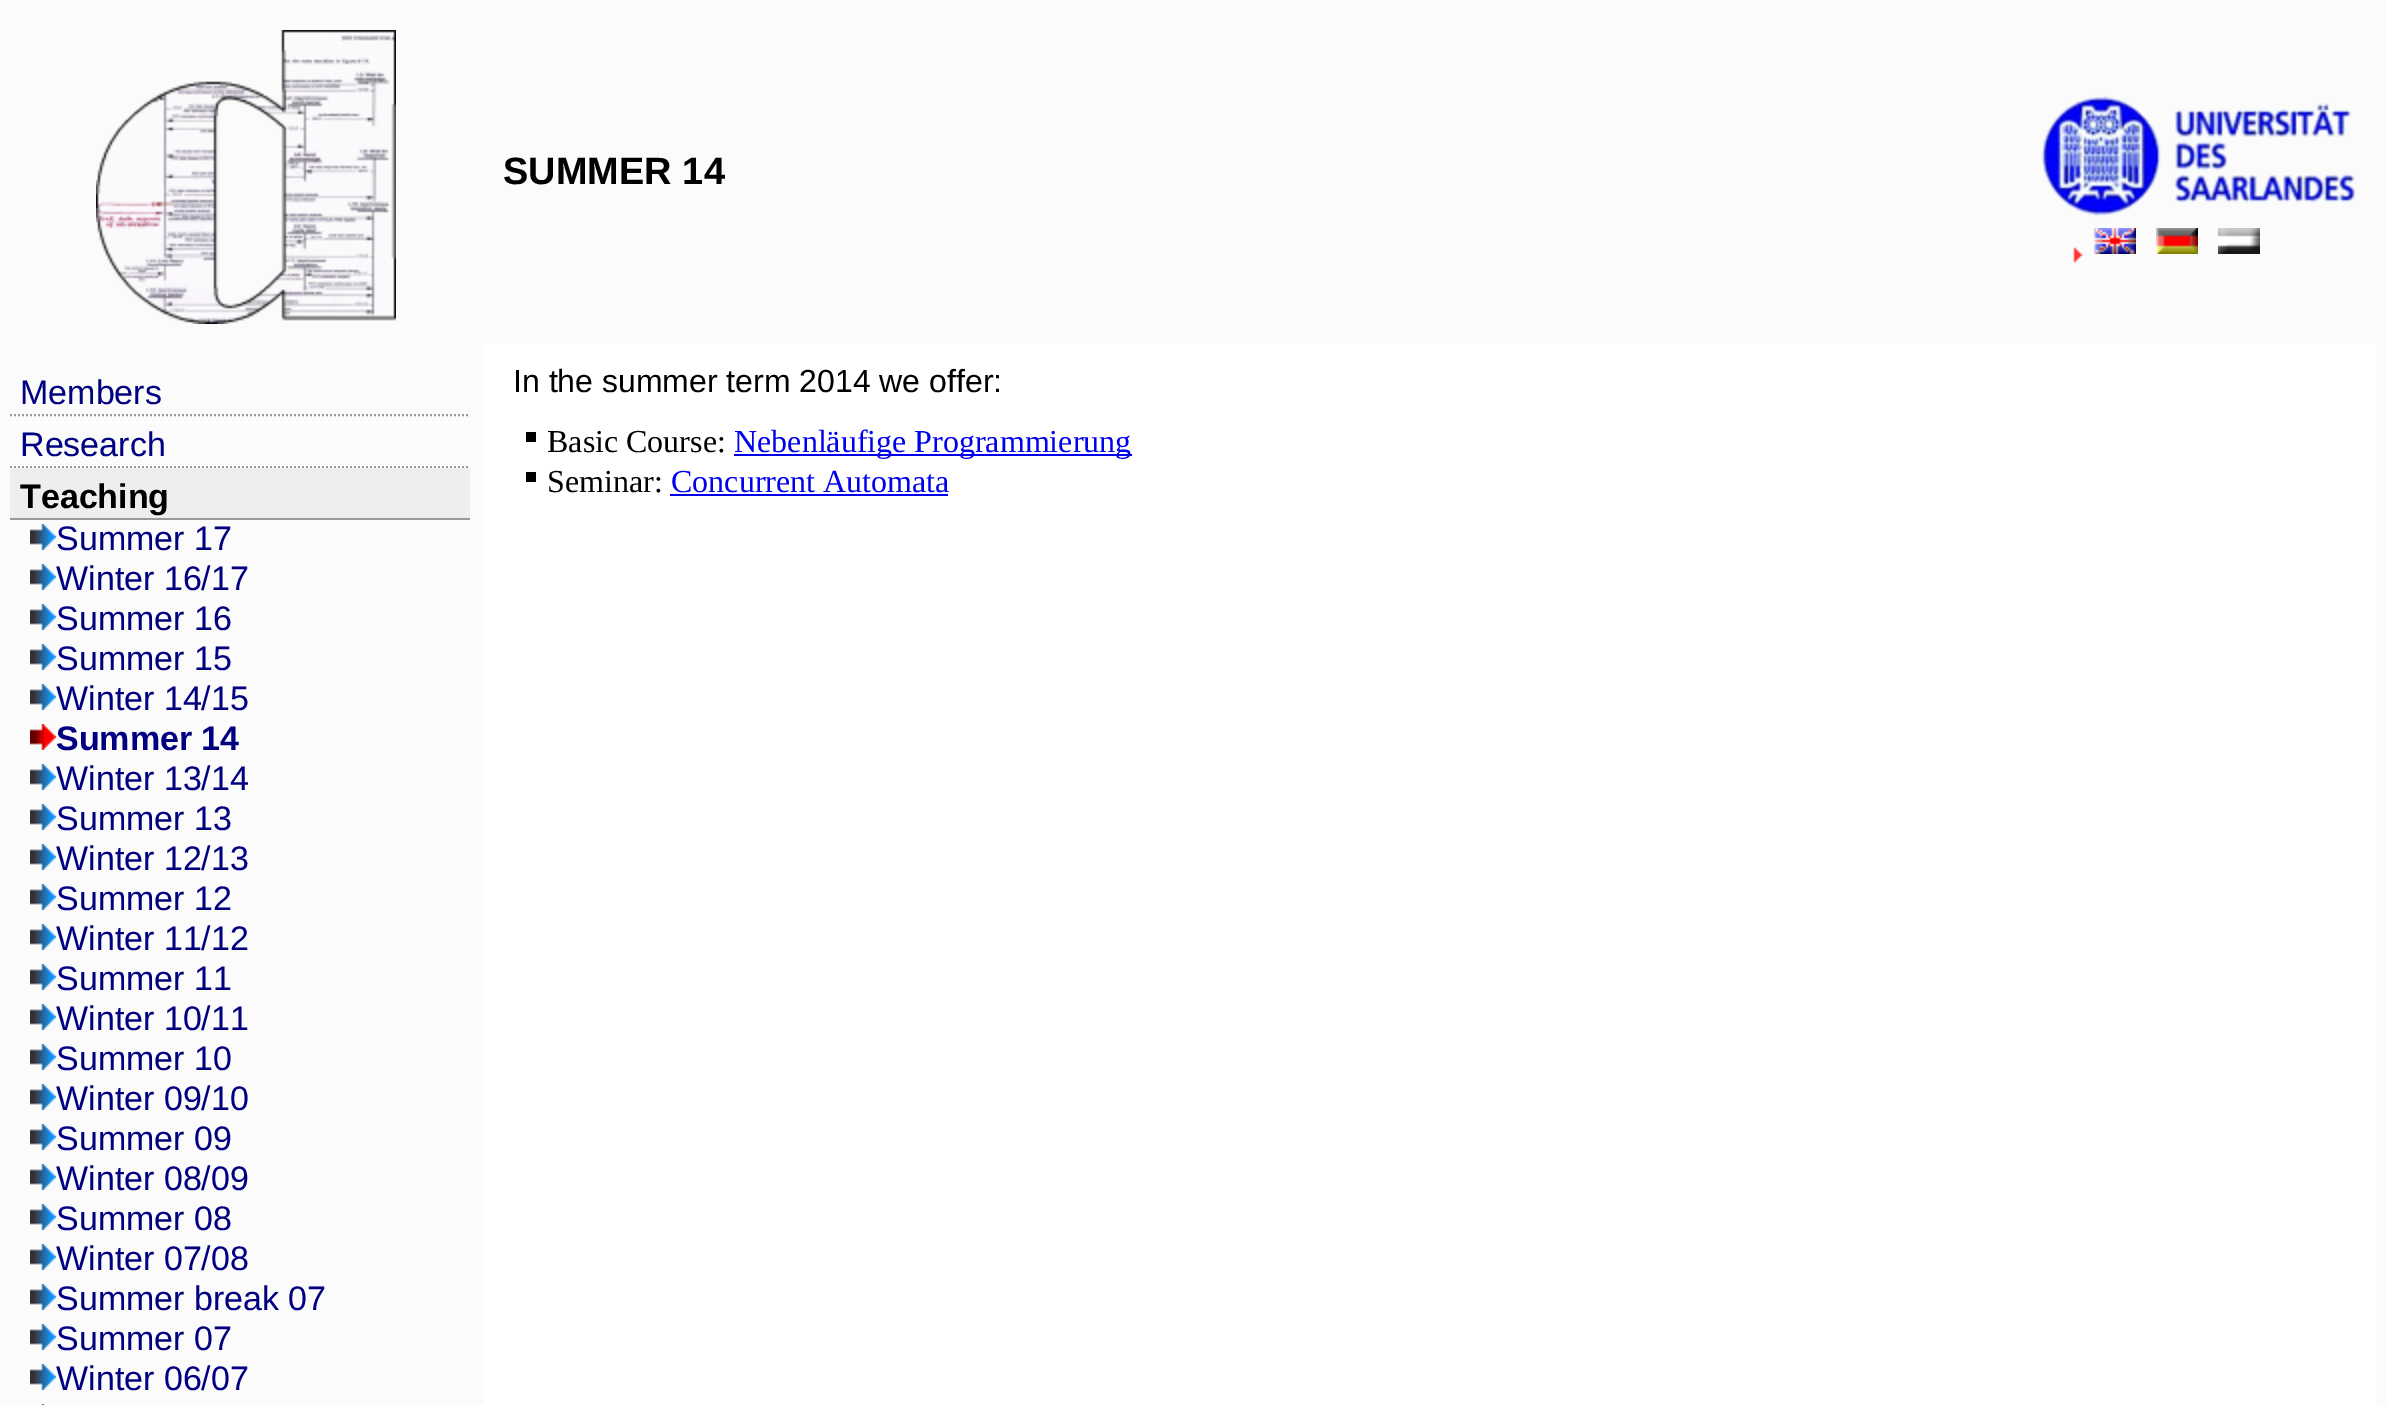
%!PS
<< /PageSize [2386 1405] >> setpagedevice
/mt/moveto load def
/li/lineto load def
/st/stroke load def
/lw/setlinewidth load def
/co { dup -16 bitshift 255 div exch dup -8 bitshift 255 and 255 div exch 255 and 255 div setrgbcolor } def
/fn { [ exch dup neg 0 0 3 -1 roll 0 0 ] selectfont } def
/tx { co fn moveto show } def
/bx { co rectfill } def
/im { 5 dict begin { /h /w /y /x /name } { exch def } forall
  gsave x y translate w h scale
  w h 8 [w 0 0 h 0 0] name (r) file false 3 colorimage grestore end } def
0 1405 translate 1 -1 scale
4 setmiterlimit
0 0 2386 1405 16#FBFBFB bx
(media/1.raw) 96 30 300 294 im
(media/2.raw) 2041 95 314 122 im
(media/3.raw) 2073 247 10 16 im
(media/4.raw) 2094 228 42 26 im
(media/5.raw) 2156 228 42 26 im
(media/6.raw) 2218 228 42 26 im
16#999999 co
2 lw
[2 2] 0 setdash
10 415 mt 470 415 li st
10 467 mt 470 467 li st
10 468 460 50 16#EEEEEE bx
10 518 460 2 16#999999 bx
(media/7.raw) 30 524 26 26 im
(media/7.raw) 30 564 26 26 im
(media/7.raw) 30 604 26 26 im
(media/7.raw) 30 644 26 26 im
(media/7.raw) 30 684 26 26 im
(media/8.raw) 30 724 26 26 im
(media/7.raw) 30 764 26 26 im
(media/7.raw) 30 804 26 26 im
(media/7.raw) 30 844 26 26 im
(media/7.raw) 30 884 26 26 im
(media/7.raw) 30 924 26 26 im
(media/7.raw) 30 964 26 26 im
(media/7.raw) 30 1004 26 26 im
(media/7.raw) 30 1044 26 26 im
(media/7.raw) 30 1084 26 26 im
(media/7.raw) 30 1124 26 26 im
(media/7.raw) 30 1164 26 26 im
(media/7.raw) 30 1204 26 26 im
(media/7.raw) 30 1244 26 26 im
(media/7.raw) 30 1284 26 26 im
(media/7.raw) 30 1324 26 26 im
(media/7.raw) 30 1364 26 26 im
(media/9.raw) 41 1404 4 1 im
484 344 1892 1061 16#FFFFFF bx
526 432 10 10 16#000000 bx
734 454 398 2 16#0000EE bx
526 472 10 10 16#000000 bx
670 494 278 2 16#0000EE bx
(SUMMER 14) 503 184 /LiberationSans-Bold 38 16#000000 tx
(Members) 20 404 /LiberationSans-Regular 34 16#000080 tx
(Research) 20 456 /LiberationSans-Regular 34 16#000080 tx
(Teaching) 20 508 /LiberationSans-Bold 34 16#000000 tx
(Summer 17) 56 550 /LiberationSans-Regular 34 16#000080 tx
(Winter 16/17) 56 590 /LiberationSans-Regular 34 16#000080 tx
(Summer 16) 56 630 /LiberationSans-Regular 34 16#000080 tx
(Summer 15) 56 670 /LiberationSans-Regular 34 16#000080 tx
(Winter 14/15) 56 710 /LiberationSans-Regular 34 16#000080 tx
(Summer 14) 56 750 /LiberationSans-Bold 34 16#000080 tx
(Winter 13/14) 56 790 /LiberationSans-Regular 34 16#000080 tx
(Summer 13) 56 830 /LiberationSans-Regular 34 16#000080 tx
(Winter 12/13) 56 870 /LiberationSans-Regular 34 16#000080 tx
(Summer 12) 56 910 /LiberationSans-Regular 34 16#000080 tx
(Winter 11/12) 56 950 /LiberationSans-Regular 34 16#000080 tx
(Summer 11) 56 990 /LiberationSans-Regular 34 16#000080 tx
(Winter 10/11) 56 1030 /LiberationSans-Regular 34 16#000080 tx
(Summer 10) 56 1070 /LiberationSans-Regular 34 16#000080 tx
(Winter 09/10) 56 1110 /LiberationSans-Regular 34 16#000080 tx
(Summer 09) 56 1150 /LiberationSans-Regular 34 16#000080 tx
(Winter 08/09) 56 1190 /LiberationSans-Regular 34 16#000080 tx
(Summer 08) 56 1230 /LiberationSans-Regular 34 16#000080 tx
(Winter 07/08) 56 1270 /LiberationSans-Regular 34 16#000080 tx
(Summer break 07) 56 1310 /LiberationSans-Regular 34 16#000080 tx
(Summer 07) 56 1350 /LiberationSans-Regular 34 16#000080 tx
(Winter 06/07) 56 1390 /LiberationSans-Regular 34 16#000080 tx
(In the summer term 2014 we offer:) 513 392 /LiberationSans-Regular 32 16#000000 tx
(Basic Course:) 547 452 /LiberationSerif-Regular 32 16#000000 tx
(Nebenläufige Programmierung) 734 452 /LiberationSerif-Regular 32 16#0000EE tx
(Seminar:) 547 492 /LiberationSerif-Regular 32 16#000000 tx
(Concurrent Automata) 671 492 /LiberationSerif-Regular 32 16#0000EE tx
showpage
